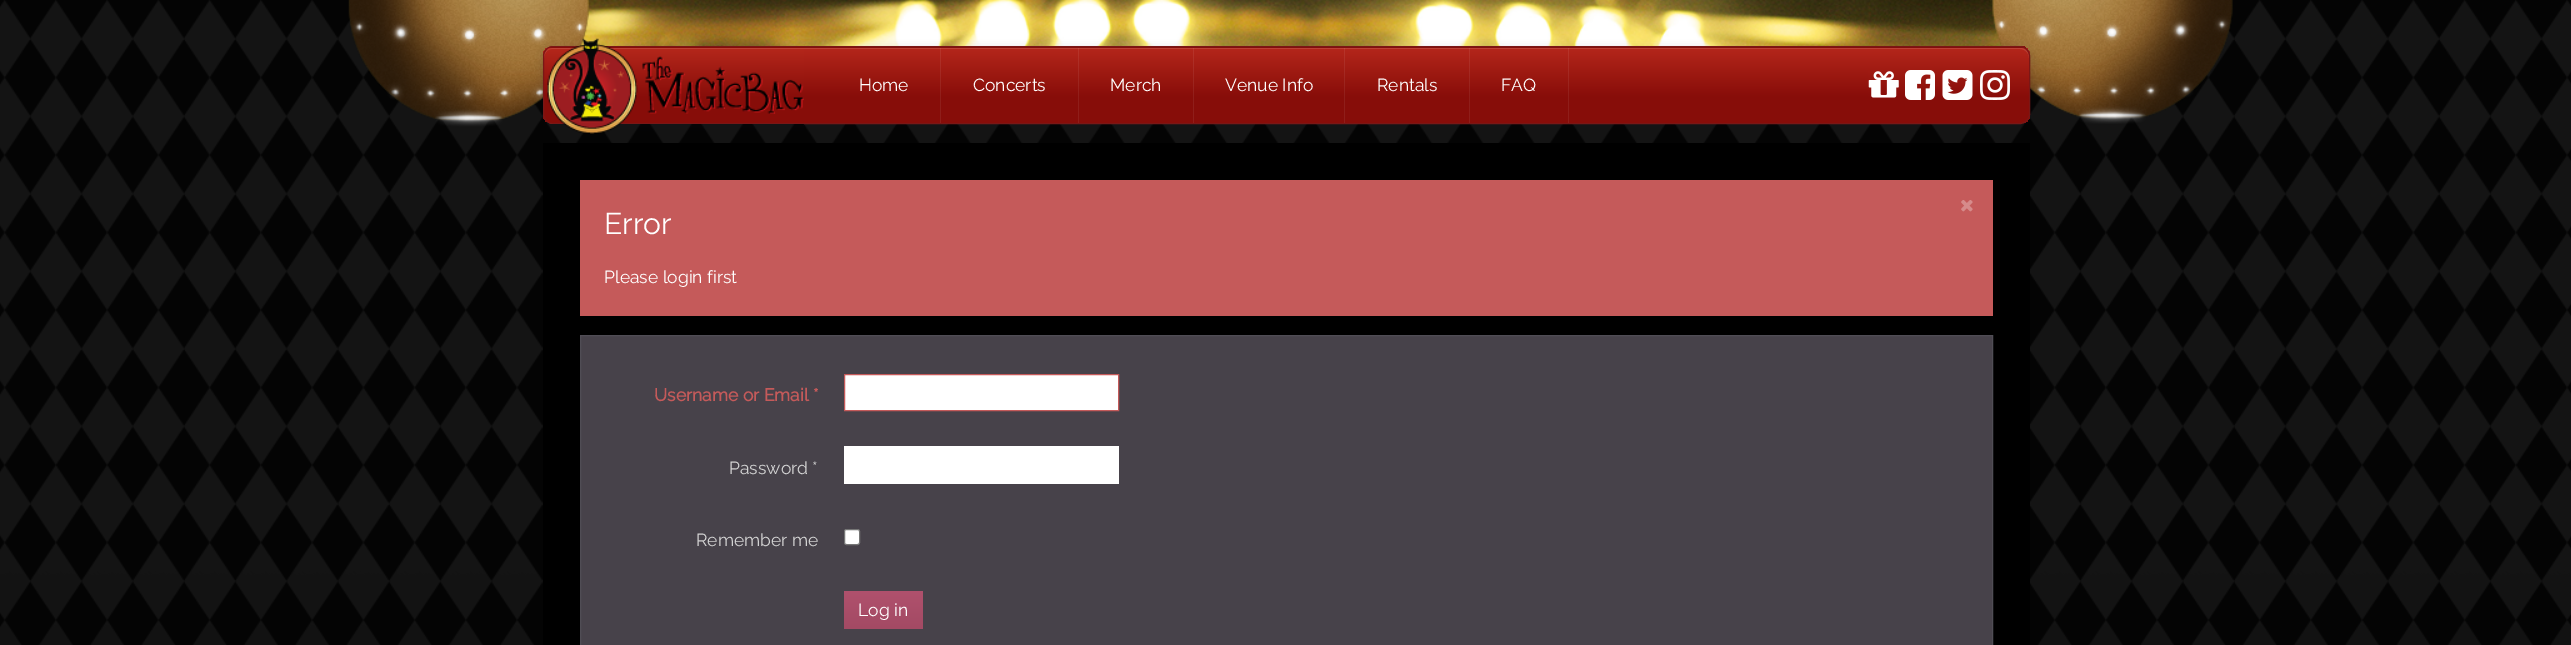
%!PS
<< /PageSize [2571 645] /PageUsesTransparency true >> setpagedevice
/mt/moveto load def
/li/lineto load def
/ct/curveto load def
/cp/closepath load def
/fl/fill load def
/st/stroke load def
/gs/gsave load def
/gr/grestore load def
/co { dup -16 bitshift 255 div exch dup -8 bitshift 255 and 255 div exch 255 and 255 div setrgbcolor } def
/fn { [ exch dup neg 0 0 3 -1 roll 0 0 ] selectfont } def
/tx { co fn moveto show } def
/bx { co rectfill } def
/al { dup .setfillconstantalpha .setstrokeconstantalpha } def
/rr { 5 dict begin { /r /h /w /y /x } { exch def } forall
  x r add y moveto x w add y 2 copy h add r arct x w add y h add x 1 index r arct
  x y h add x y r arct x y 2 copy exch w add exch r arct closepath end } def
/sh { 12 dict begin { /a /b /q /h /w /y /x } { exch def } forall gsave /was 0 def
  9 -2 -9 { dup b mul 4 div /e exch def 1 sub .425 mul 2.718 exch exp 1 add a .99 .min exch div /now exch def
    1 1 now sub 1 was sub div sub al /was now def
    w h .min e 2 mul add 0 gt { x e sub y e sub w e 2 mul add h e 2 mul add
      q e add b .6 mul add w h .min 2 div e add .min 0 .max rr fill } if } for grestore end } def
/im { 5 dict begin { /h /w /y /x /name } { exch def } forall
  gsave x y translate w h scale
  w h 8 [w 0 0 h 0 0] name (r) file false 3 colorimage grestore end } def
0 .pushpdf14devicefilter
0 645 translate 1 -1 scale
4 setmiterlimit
0 0 2571 645 16#FFFFFF bx
(media/1.raw) 0 0 2571 645 im
16#140F2D co
543 48 1487 77 10 4 .15 sh
gs
543 46 1487 78 10 rr clip newpath
gs 543 46 mt 2030 46 li 2030 48 li 543 48 li cp clip newpath
<< /ShadingType 2 /ColorSpace /DeviceRGB /Coords [1286 -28 1286 48] /Extend [true true] /Function << /FunctionType 3 /Domain [0 1] /Functions [<< /FunctionType 2 /Domain [0 1] /C0 [.71 .153 .106] /C1 [.529 .051 .035] /N 1 >> << /FunctionType 2 /Domain [0 1] /C0 [.529 .051 .035] /C1 [.529 .051 .035] /N 1 >>] /Bounds [.66] /Encode [0 1 0 1] >> >> shfill gr
gs 543 48 mt 2030 48 li 2030 123 li 543 123 li cp clip newpath
<< /ShadingType 2 /ColorSpace /DeviceRGB /Coords [1286 47 1286 123] /Extend [true true] /Function << /FunctionType 3 /Domain [0 1] /Functions [<< /FunctionType 2 /Domain [0 1] /C0 [.71 .153 .106] /C1 [.529 .051 .035] /N 1 >> << /FunctionType 2 /Domain [0 1] /C0 [.529 .051 .035] /C1 [.529 .051 .035] /N 1 >>] /Bounds [.66] /Encode [0 1 0 1] >> >> shfill gr
gr
0.12 al
16#FFFFFF co
552 49 mt 2020 49 li 2025 49 2029 53 2029 58 ct 2029 53 2026 48 2020 48 ct 553 48 li 547 48 544 53 544 58 ct 544 53 548 49 552 49 ct cp fl
1 al
16#791716 co
543.5 46.5 1486 77 9.5 rr st
(media/2.raw) 547 38 257 96 im
0.07 al
940 48 1 75 16#FFFFFF bx
1078 48 1 75 16#FFFFFF bx
1193 48 1 75 16#FFFFFF bx
1344 48 1 75 16#FFFFFF bx
1469 48 1 75 16#FFFFFF bx
1568 48 1 75 16#FFFFFF bx
1 al
(media/3.raw) 1868 71 31 27 im
(media/4.raw) 1905 70 30 30 im
(media/5.raw) 1942 70 31 30 im
(media/6.raw) 1980 70 30 30 im
543 143 1487 502 16#000000 bx
580 180 1413 136 16#C55A5A bx
(media/7.raw) 1961 200 12 12 im
16#47424A co
580.5 335.5 mt 1992.5 335.5 li 1992.5 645.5 li 580.5 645.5 li cp gs fl gr
16#504D55 co
st
16#FFFFFF co
844.5 374.5 mt 1118.5 374.5 li 1118.5 410.5 li 844.5 410.5 li cp gs fl gr
16#C55A5A co
st
844 446 275 38 16#FFFFFF bx
844.5 529.5 15 15 2 rr gs fl gr
16#767676 co
st
gs 844 591 79 38 2.5 rr clip newpath
<< /ShadingType 2 /ColorSpace /DeviceRGB /Coords [883 591 883 629] /Extend [true true] /Function << /FunctionType 2 /Domain [0 1] /C0 [.69 .318 .427] /C1 [.639 .29 .392] /N 1 >> >> shfill gr
(Home) 859 91 /Raleway-Thin 17.5 16#FFFFFF tx
(Concerts) 973 91 /Raleway-Thin 17.5 16#FFFFFF tx
(Merch) 1110 91 /Raleway-Thin 17.5 16#FFFFFF tx
(Venue Info) 1225 91 /Raleway-Thin 17.5 16#FFFFFF tx
(Rentals) 1377 91 /Raleway-Thin 17.5 16#FFFFFF tx
(FAQ) 1501 91 /Raleway-Thin 17.5 16#FFFFFF tx
(Error) 604 234 /Raleway-Thin 30 16#FFFFFF tx
(Please login first) 604 283 /Raleway-Thin 17.5 16#FFFFFF tx
(Username or Email *) 654 401 /Raleway-Bold 17.5 16#C55A5A tx
(Password *) 729 474 /Raleway-Thin 17.5 16#D3D3D3 tx
(Remember me) 696 546 /Raleway-Thin 17.5 16#D3D3D3 tx
(Log in) 858 616 /Raleway-Thin 17.5 16#FFFFFF tx
.poppdf14devicefilter showpage
